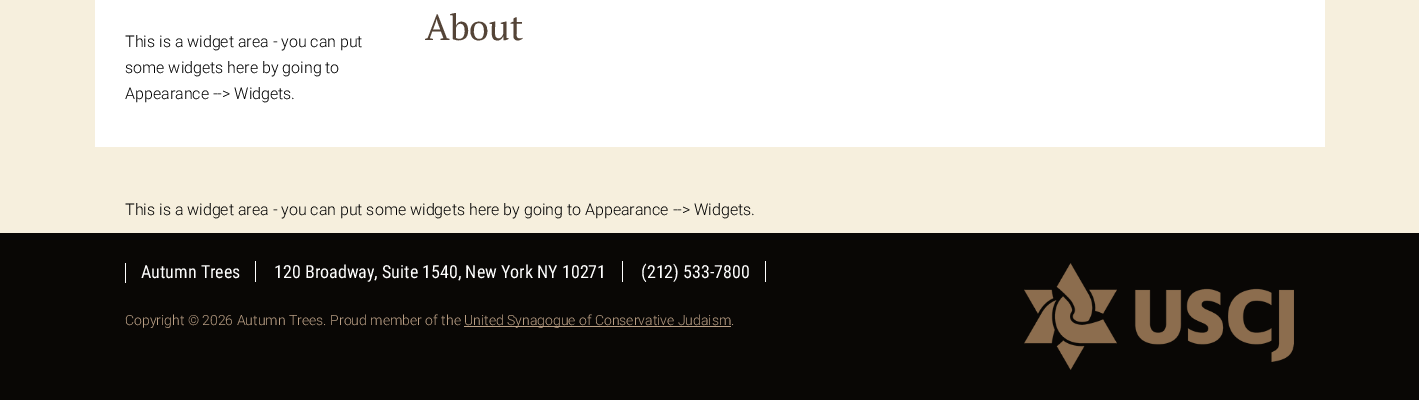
%!PS
<< /PageSize [1419 400] >> setpagedevice
/co { dup -16 bitshift 255 div exch dup -8 bitshift 255 and 255 div exch 255 and 255 div setrgbcolor } def
/fn { [ exch dup neg 0 0 3 -1 roll 0 0 ] selectfont } def
/tx { co fn moveto show } def
/bx { co rectfill } def
/im { 5 dict begin { /h /w /y /x /name } { exch def } forall
  gsave x y translate w h scale
  w h 8 [w 0 0 h 0 0] name (r) file false 3 colorimage grestore end } def
0 400 translate 1 -1 scale
4 setmiterlimit
0 0 1419 400 16#090705 bx
0 0 1419 233 16#F6EFDD bx
95 0 1230 147 16#FFFFFF bx
125 263 1 20 16#FFFFFF bx
255 261 1 21 16#FFFFFF bx
622 261 1 21 16#FFFFFF bx
765 261 1 21 16#FFFFFF bx
464 326 267 1 16#BBA085 bx
(media/1.raw) 1024 263 270 107 im
(About) 425 40 /PTSerif-Regular 36 16#544437 tx
(This is a widget area - you can put) 125 47 /Roboto-Light 16 16#000000 tx
(some widgets here by going to) 125 73 /Roboto-Light 16 16#000000 tx
(Appearance --> Widgets.) 125 99 /Roboto-Light 16 16#000000 tx
(This is a widget area - you can put some widgets here by going to Appearance --> Widgets.) 125 215 /Roboto-Light 16 16#000000 tx
(Autumn Trees) 141 278 /RobotoCondensed-Regular 18 16#FFFFFF tx
(120 Broadway, Suite 1540, New York NY 10271) 274 278 /RobotoCondensed-Regular 18 16#FFFFFF tx
(\(212\) 533-7800) 641 278 /RobotoCondensed-Regular 18 16#FFFFFF tx
(Copyright © 2026 Autumn Trees. Proud member of the) 125 325 /Roboto-Light 14 16#BBA085 tx
(United Synagogue of Conservative Judaism.) 464 325 /Roboto-Light 14 16#BBA085 tx
showpage
